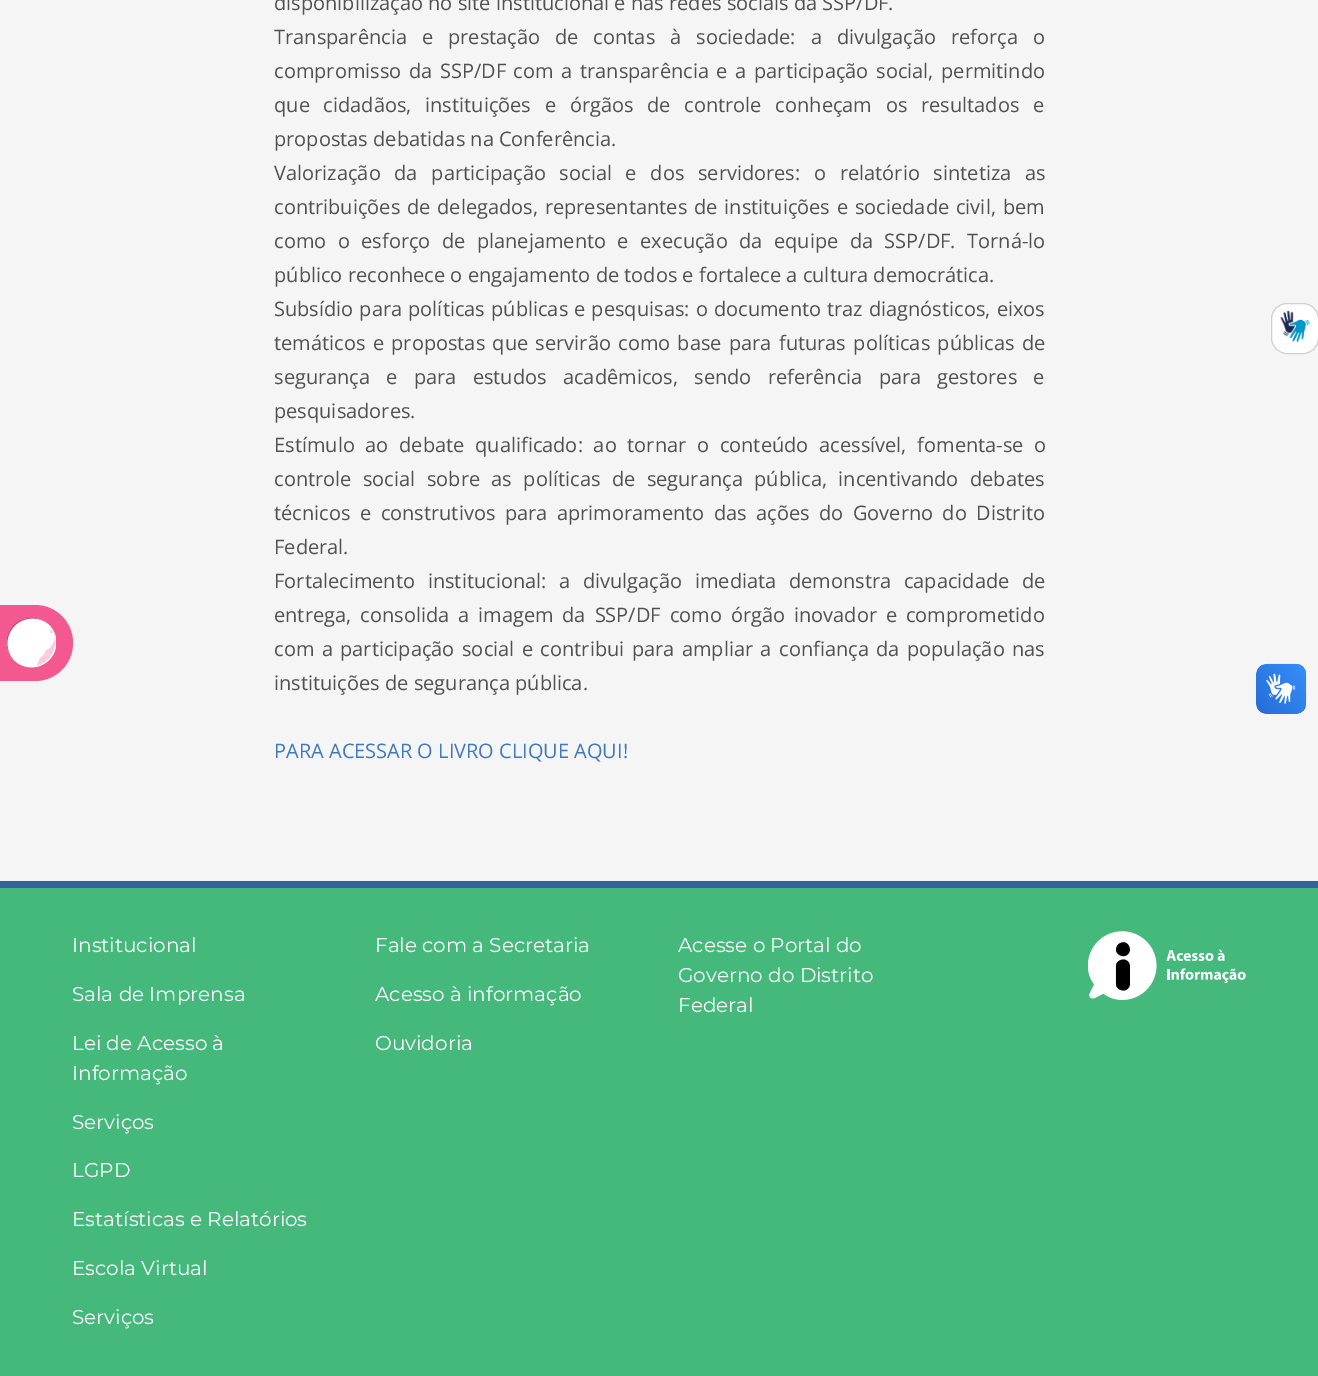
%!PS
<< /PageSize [1318 1376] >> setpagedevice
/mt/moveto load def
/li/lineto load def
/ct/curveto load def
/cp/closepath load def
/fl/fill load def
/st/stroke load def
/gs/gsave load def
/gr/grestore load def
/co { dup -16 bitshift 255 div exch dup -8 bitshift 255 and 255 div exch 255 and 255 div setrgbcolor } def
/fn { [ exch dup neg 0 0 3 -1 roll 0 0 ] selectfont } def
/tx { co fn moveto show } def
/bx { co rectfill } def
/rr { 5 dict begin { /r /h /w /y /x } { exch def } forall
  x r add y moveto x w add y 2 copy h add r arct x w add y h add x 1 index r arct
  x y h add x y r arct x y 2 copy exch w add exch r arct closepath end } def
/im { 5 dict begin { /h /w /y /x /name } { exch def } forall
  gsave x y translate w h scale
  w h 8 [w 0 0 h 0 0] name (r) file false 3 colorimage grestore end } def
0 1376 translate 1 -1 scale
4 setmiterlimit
0 0 1318 1376 16#F5F5F5 bx
16#F3588E co
-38 605 mt 35 605 li 56 605 73 622 73 643 ct 73 664 56 681 35 681 ct -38 681 li cp fl
(media/1.raw) 6 618 50 50 im
0 888 1318 488 16#45B97C bx
0 881 1318 7 16#346399 bx
16#FFFFFF co
1271.5 303.5 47 50 15.5 rr gs fl gr
16#D0D0D0 co
st
(media/2.raw) 1280 310 30 33 im
(media/3.raw) 1256 663 51 51 im
(media/4.raw) 1256 664 50 50 im
(media/5.raw) 1088 931 158 69 im
(disponibilização no site institucional e nas redes sociais da SSP/DF.) 274 10 /OpenSans-Regular 20 16#515151 tx
274 44 mt 9.75 0 32 (Transparência e prestação de contas à sociedade: a divulgação reforça o) widthshow
274 78 mt 2.4 0 32 (compromisso da SSP/DF com a transparência e a participação social, permitindo) widthshow
274 112 mt 8.5 0 32 (que cidadãos, instituições e órgãos de controle conheçam os resultados e) widthshow
(propostas debatidas na Conferência.) 274 146 /OpenSans-Regular 20 16#515151 tx
274 180 mt 8.5 0 32 (Valorização da participação social e dos servidores: o relatório sintetiza as) widthshow
274 214 mt 1.6 0 32 (contribuições de delegados, representantes de instituições e sociedade civil, bem) widthshow
274 248 mt 6.25 0 32 (como o esforço de planejamento e execução da equipe da SSP/DF. Torná-lo) widthshow
(público reconhece o engajamento de todos e fortalece a cultura democrática.) 274 282 /OpenSans-Regular 20 16#515151 tx
274 316 mt .9 0 32 (Subsídio para políticas públicas e pesquisas: o documento traz diagnósticos, eixos) widthshow
274 350 mt 2.1 0 32 (temáticos e propostas que servirão como base para futuras políticas públicas de) widthshow
274 384 mt 11 0 32 (segurança e para estudos acadêmicos, sendo referência para gestores e) widthshow
(pesquisadores.) 274 418 /OpenSans-Regular 20 16#515151 tx
274 452 mt 5.5 0 32 (Estímulo ao debate qualificado: ao tornar o conteúdo acessível, fomenta-se o) widthshow
274 486 mt 6.25 0 32 (controle social sobre as políticas de segurança pública, incentivando debates) widthshow
274 520 mt 4.25 0 32 (técnicos e construtivos para aprimoramento das ações do Governo do Distrito) widthshow
(Federal.) 274 554 /OpenSans-Regular 20 16#515151 tx
274 588 mt 7.5 0 32 (Fortalecimento institucional: a divulgação imediata demonstra capacidade de) widthshow
274 622 mt 3.75 0 32 (entrega, consolida a imagem da SSP/DF como órgão inovador e comprometido) widthshow
274 656 mt 2.25 0 32 (com a participação social e contribui para ampliar a confiança da população nas) widthshow
(instituições de segurança pública.) 274 690 /OpenSans-Regular 20 16#515151 tx
(PARA ACESSAR O LIVRO CLIQUE AQUI!) 274 758 /OpenSans-Regular 20 16#4079BC tx
(Institucional) 72 952 /Montserrat-Regular 20 16#FFFFFF tx
(Sala de Imprensa) 72 1001 /Montserrat-Regular 20 16#FFFFFF tx
(Lei de Acesso à) 72 1050 /Montserrat-Regular 20 16#FFFFFF tx
(Informação) 72 1080 /Montserrat-Regular 20 16#FFFFFF tx
(Serviços) 72 1129 /Montserrat-Regular 20 16#FFFFFF tx
(LGPD) 72 1177 /Montserrat-Regular 20 16#FFFFFF tx
(Estatísticas e Relatórios) 72 1226 /Montserrat-Regular 20 16#FFFFFF tx
(Escola Virtual) 72 1275 /Montserrat-Regular 20 16#FFFFFF tx
(Serviços) 72 1324 /Montserrat-Regular 20 16#FFFFFF tx
(Fale com a Secretaria) 375 952 /Montserrat-Regular 20 16#FFFFFF tx
(Acesso à informação) 375 1001 /Montserrat-Regular 20 16#FFFFFF tx
(Ouvidoria) 375 1050 /Montserrat-Regular 20 16#FFFFFF tx
(Acesse o Portal do) 678 952 /Montserrat-Regular 20 16#FFFFFF tx
(Governo do Distrito) 678 982 /Montserrat-Regular 20 16#FFFFFF tx
(Federal) 678 1012 /Montserrat-Regular 20 16#FFFFFF tx
showpage
